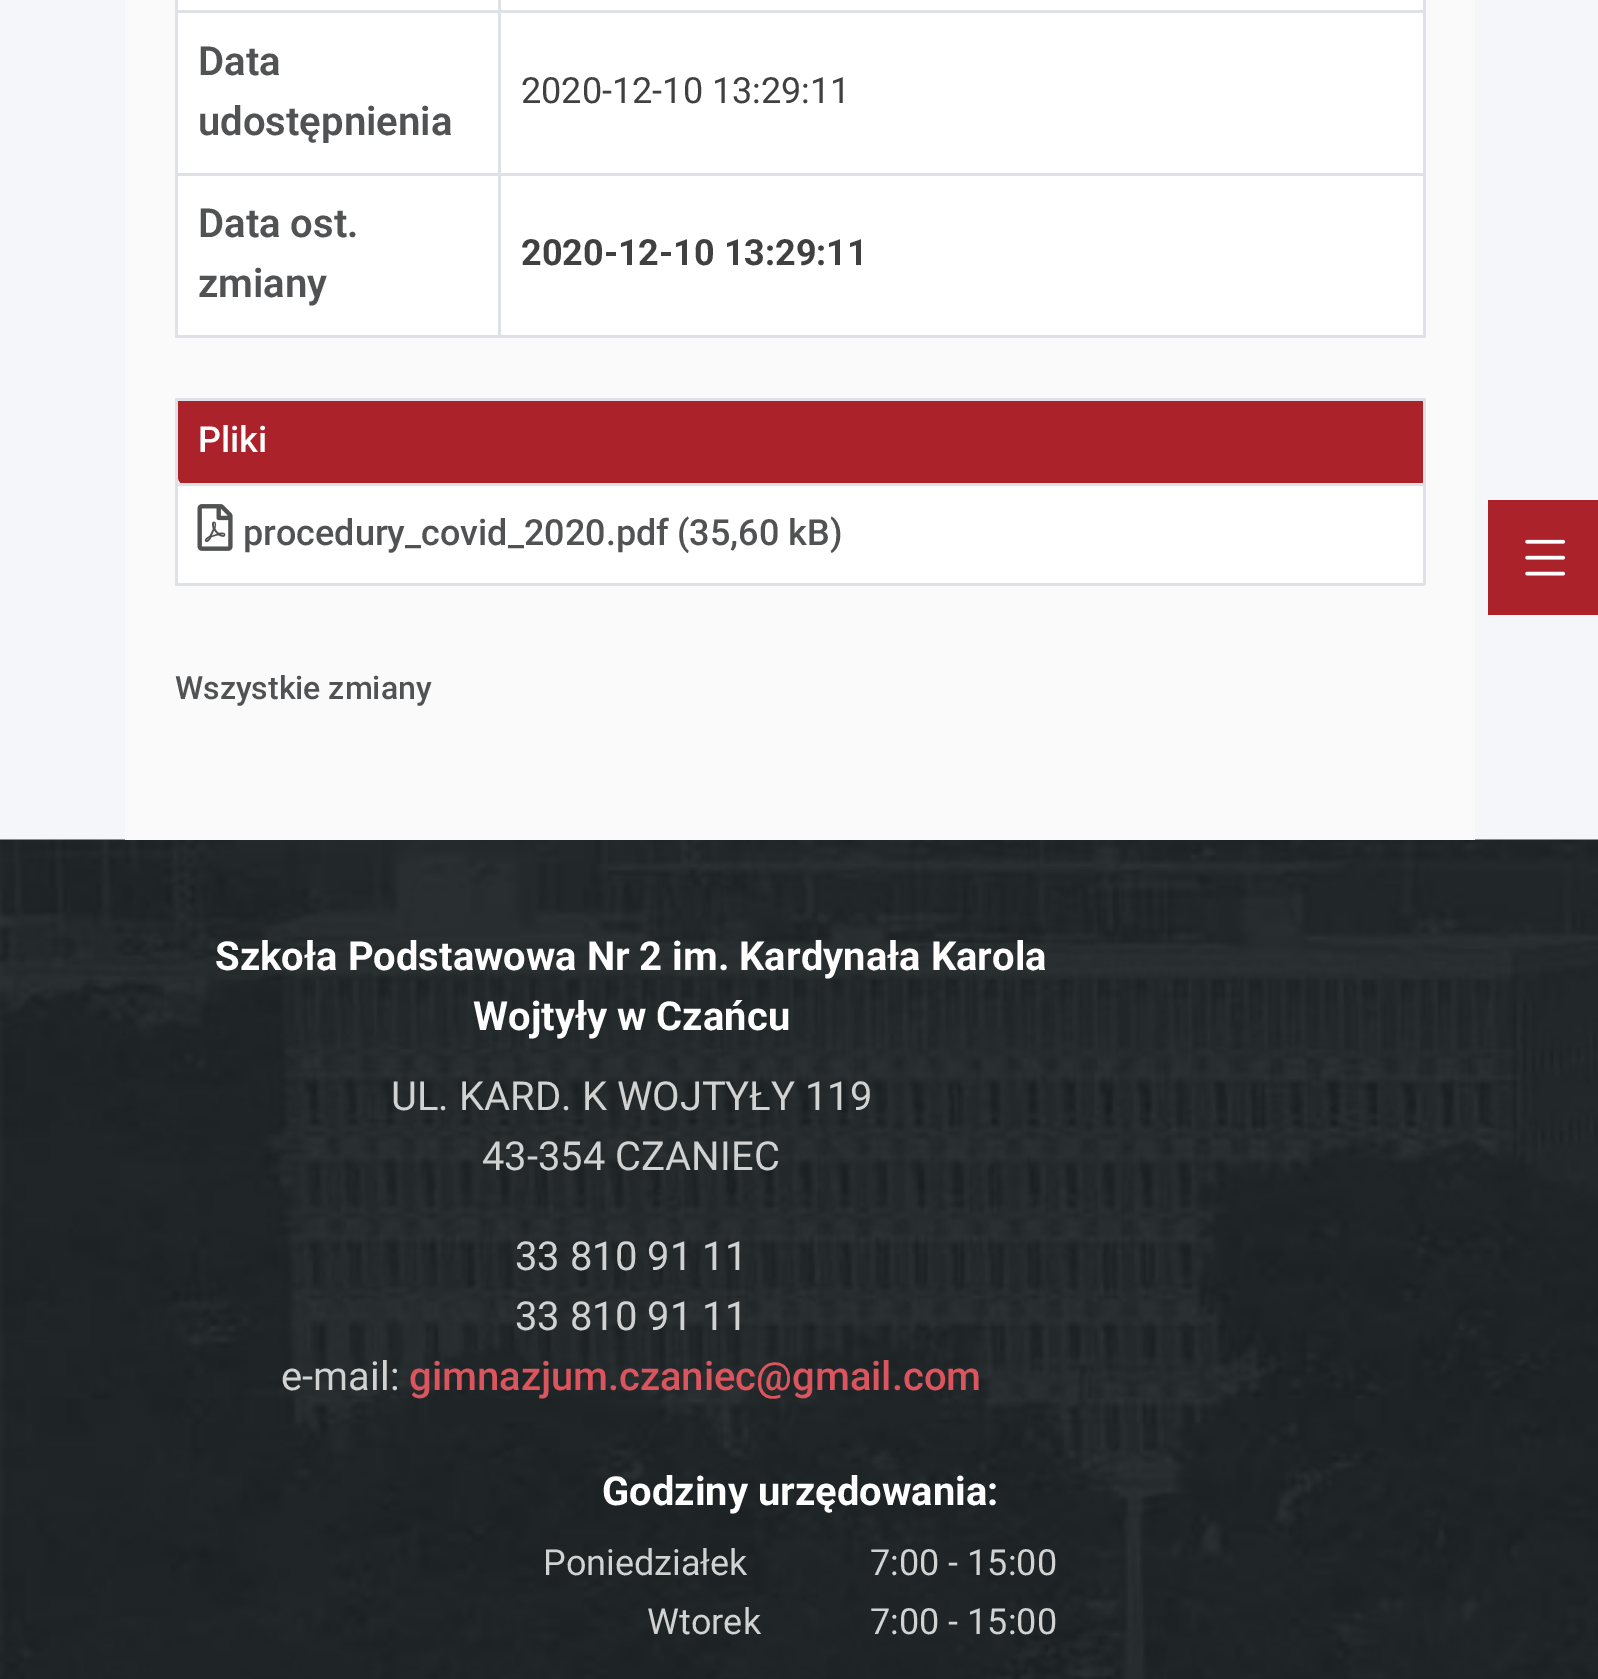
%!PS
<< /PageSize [1598 1679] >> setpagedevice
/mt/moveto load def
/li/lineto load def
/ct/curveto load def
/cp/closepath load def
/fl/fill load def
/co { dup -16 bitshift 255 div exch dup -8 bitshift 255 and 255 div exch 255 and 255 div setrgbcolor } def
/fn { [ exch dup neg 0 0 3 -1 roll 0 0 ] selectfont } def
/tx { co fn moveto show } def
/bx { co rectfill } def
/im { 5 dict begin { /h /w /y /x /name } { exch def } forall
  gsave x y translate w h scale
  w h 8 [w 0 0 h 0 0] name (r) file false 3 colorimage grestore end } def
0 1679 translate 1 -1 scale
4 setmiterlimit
0 0 1598 1679 16#F5F6FA bx
(media/3.raw) 0 839 1598 840 im
125 0 1350 840 16#FAFAFA bx
178 0 1245 335 16#FFFFFF bx
498 10 927 3 16#DEE2E6 bx
498 173 927 3 16#DEE2E6 bx
1423 173 3 165 16#DEE2E6 bx
498 335 927 3 16#DEE2E6 bx
498 173 3 165 16#DEE2E6 bx
175 173 325 3 16#DEE2E6 bx
498 10 3 165 16#DEE2E6 bx
175 10 325 3 16#DEE2E6 bx
498 0 3 13 16#DEE2E6 bx
175 335 325 3 16#DEE2E6 bx
175 173 3 165 16#DEE2E6 bx
175 0 3 175 16#DEE2E6 bx
1423 0 3 175 16#DEE2E6 bx
178 477 1245 106 16#FFFFFF bx
16#AB222B co
178 398 mt 1425 398 li 1425 477 li 1425 481.5 1421.5 485 1417 485 ct 186 485 li 181.5 485 178 481.5 178 477 ct cp fl
175 398 1250 3 16#DEE2E6 bx
175 483 1250 3 16#DEE2E6 bx
1423 483 3 102 16#DEE2E6 bx
1423 398 3 87 16#DEE2E6 bx
175 583 1250 3 16#DEE2E6 bx
175 483 3 102 16#DEE2E6 bx
175 398 3 87 16#DEE2E6 bx
(media/1.raw) 197 504 36 47 im
1488 500 110 115 16#AB222B bx
(media/2.raw) 1525 539 41 37 im
(Data) 198 75 /Roboto-SemiBold 40 16#515253 tx
(udostępnienia) 198 135 /Roboto-SemiBold 40 16#515253 tx
(2020-12-10 13:29:11) 521 103 /Roboto-Regular 36 16#404040 tx
(Data ost.) 198 237 /Roboto-SemiBold 40 16#515253 tx
(zmiany) 198 297 /Roboto-SemiBold 40 16#515253 tx
(2020-12-10 13:29:11) 521 265 /Roboto-Bold 36 16#404040 tx
(Pliki) 198 452 /Roboto-Medium 36 16#FFFFFF tx
(procedury_covid_2020.pdf) 243 545 /Roboto-Medium 36 16#515253 tx
(\(35,60 kB\)) 677 545 /Roboto-Medium 36 16#515253 tx
(Wszystkie zmiany) 175 699 /Roboto-Medium 32 16#515253 tx
(Szkoła Podstawowa Nr 2 im. Kardynała Karola) 215 970 /Roboto-Bold 40 16#FFFFFF tx
(Wojtyły w Czańcu) 473 1030 /Roboto-Bold 40 16#FFFFFF tx
(UL. KARD. K WOJTYŁY 119) 391 1110 /Roboto-Regular 40 16#D1D2D2 tx
(43-354 CZANIEC) 482 1170 /Roboto-Regular 40 16#D1D2D2 tx
(33 810 91 11) 515 1270 /Roboto-Regular 40 16#D1D2D2 tx
(33 810 91 11) 515 1330 /Roboto-Regular 40 16#D1D2D2 tx
(e-mail:) 281 1390 /Roboto-Regular 40 16#D1D2D2 tx
(gimnazjum.czaniec@gmail.com) 409 1390 /Roboto-Medium 40 16#DA555D tx
(Godziny urzędowania:) 602 1505 /Roboto-Bold 40 16#FFFFFF tx
(Poniedziałek) 543 1575 /Roboto-Regular 36 16#D1D2D2 tx
(7:00 - 15:00) 870 1575 /Roboto-Regular 36 16#D1D2D2 tx
(Wtorek) 647 1634 /Roboto-Regular 36 16#D1D2D2 tx
(7:00 - 15:00) 870 1634 /Roboto-Regular 36 16#D1D2D2 tx
showpage
